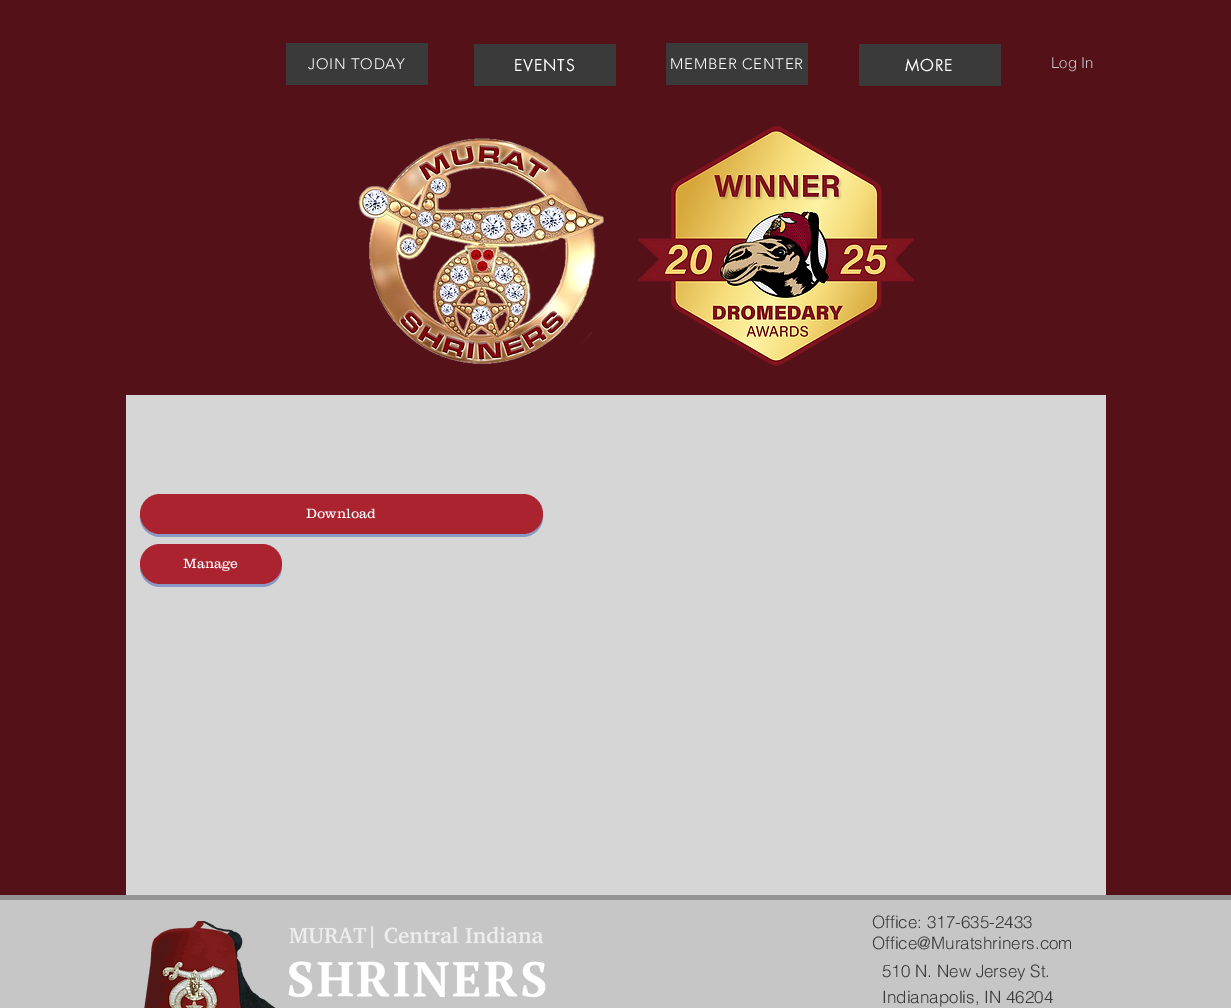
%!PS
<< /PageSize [1231 1008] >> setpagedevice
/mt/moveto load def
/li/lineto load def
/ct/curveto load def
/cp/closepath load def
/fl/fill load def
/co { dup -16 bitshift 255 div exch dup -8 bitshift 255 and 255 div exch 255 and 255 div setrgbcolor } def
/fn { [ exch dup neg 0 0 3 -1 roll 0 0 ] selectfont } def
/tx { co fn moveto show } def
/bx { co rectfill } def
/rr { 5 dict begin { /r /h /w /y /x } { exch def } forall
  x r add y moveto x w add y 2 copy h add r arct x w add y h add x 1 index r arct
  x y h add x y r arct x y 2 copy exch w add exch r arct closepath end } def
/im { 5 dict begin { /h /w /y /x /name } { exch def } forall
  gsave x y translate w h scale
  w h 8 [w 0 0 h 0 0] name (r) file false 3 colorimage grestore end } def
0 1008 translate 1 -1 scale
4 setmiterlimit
0 0 1231 1008 16#551118 bx
286 43 142 42 16#3B3A3A bx
474 44 142 42 16#3B3A3A bx
666 43 142 42 16#3B3A3A bx
859 44 142 42 16#3B3A3A bx
(media/1.raw) 358 138 246 226 im
(media/2.raw) 638 126 276 240 im
126 395 980 500 16#D6D6D6 bx
16#8998C4 co
140 516 mt 139 527 149 537 160 537 ct 523 537 li 534 537 544 527 543 516 ct 542 526 534 534 523 534 ct 160 534 li 149 534 141 526 140 516 ct cp fl
16#AA232F co
140 494 403 40 20 rr fl
16#8998C4 co
140 566 mt 140 567 li 140 578 149 587 160 587 ct 262 587 li 273 587 282 578 282 567 ct 282 566 li 281 576 273 584 262 584 ct 160 584 li 149 584 141 576 140 566 ct cp fl
16#AA232F co
140 544 142 40 20 rr fl
0 895 1231 5 16#949494 bx
0 900 1231 108 16#C6C6C6 bx
(media/3.raw) 144 921 402 87 im
/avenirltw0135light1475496-Light 15 fn
16#FFFFFF co
308 69 mt .75 0 (JOIN TODAY) ashow
/futura-Regular 16 fn
514 71 mt .75 0 (EVENTS) ashow
/avenirltw0135light1475496-Light 15 fn
670 69 mt .75 0 (MEMBER CENTER) ashow
/futura-Regular 16 fn
905 71 mt .75 0 (MORE) ashow
(Log In) 1051 68 /helvetica-Light 15 16#C6C6C6 tx
(Download) 306 518 /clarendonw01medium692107-Light 14 16#FFFFFF tx
(Manage) 183 568 /clarendonw01medium692107-Light 14 16#FFFFFF tx
(Office: 317-635-2433) 872 928 /helvetica-Light 17 16#3B3A3A tx
(Office@Muratshriners.com) 872 949 /helvetica-Light 17 16#3B3A3A tx
(510 N. New Jersey St.) 882 977 /helvetica-Light 17 16#3B3A3A tx
(Indianapolis, IN 46204) 882 1003 /helvetica-Light 17 16#3B3A3A tx
showpage
